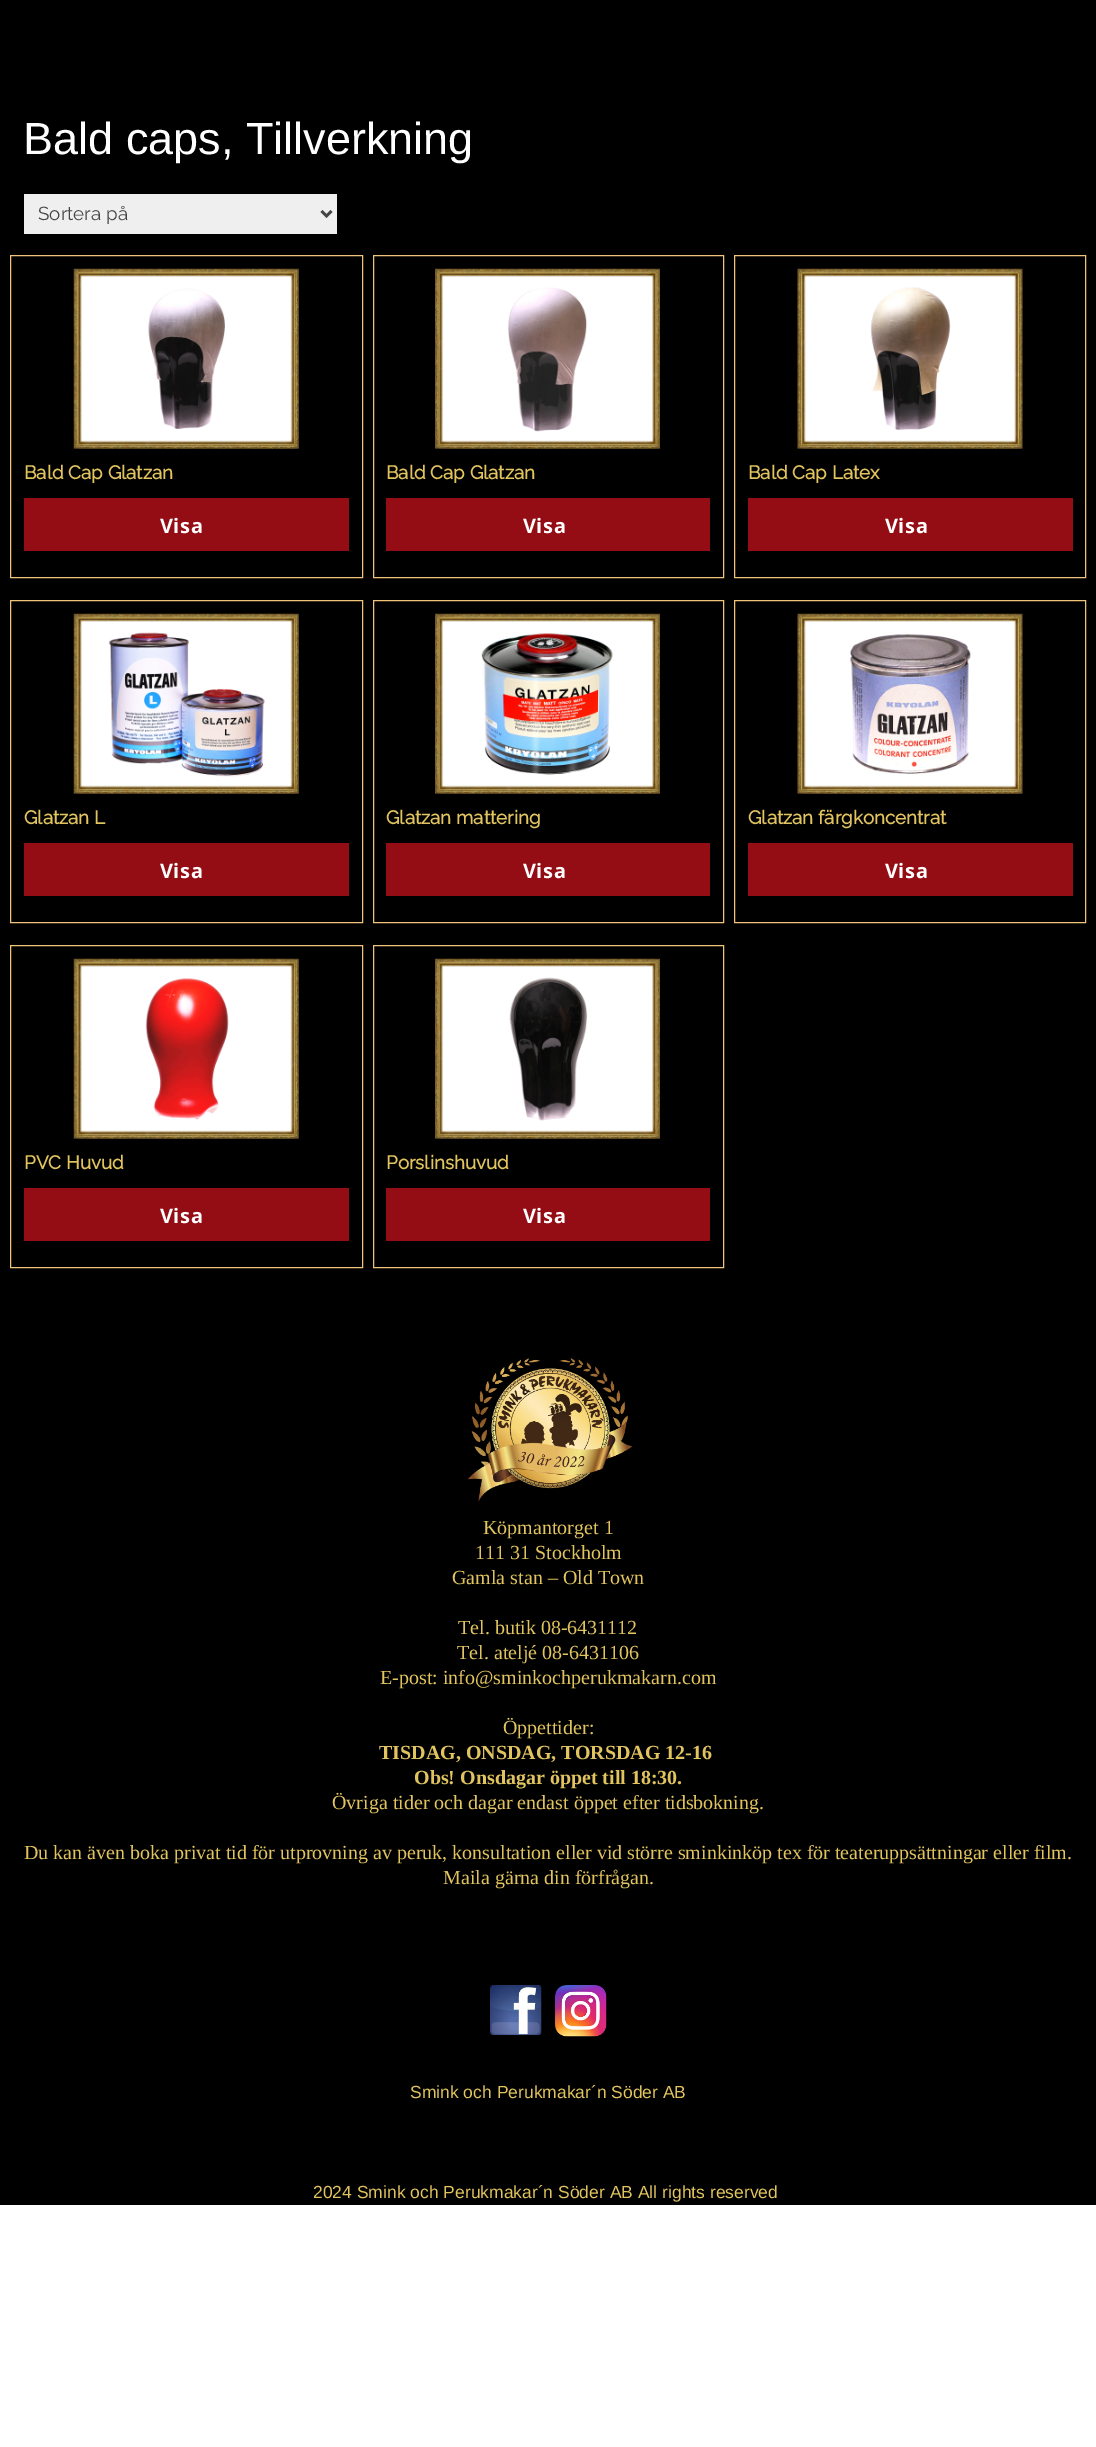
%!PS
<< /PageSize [1096 2447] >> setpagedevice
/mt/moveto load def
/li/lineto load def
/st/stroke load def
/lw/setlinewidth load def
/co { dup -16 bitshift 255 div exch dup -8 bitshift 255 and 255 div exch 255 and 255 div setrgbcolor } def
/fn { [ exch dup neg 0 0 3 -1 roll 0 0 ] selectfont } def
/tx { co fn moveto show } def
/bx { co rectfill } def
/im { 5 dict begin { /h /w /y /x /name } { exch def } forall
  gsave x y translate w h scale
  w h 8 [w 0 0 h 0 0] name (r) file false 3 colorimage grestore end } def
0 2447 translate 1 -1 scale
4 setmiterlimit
0 0 1096 2447 16#FFFFFF bx
0 0 1096 2205 16#000000 bx
24 194 313 40 16#EFEFEF bx
16#444444 co
2.5 lw
321.5 211 mt 326.5 216 li 331.5 211 li st
16#EFC379 co
1 lw
10.5 255.5 352 322 rectstroke
(media/1.raw) 73 268 226 181 im
24 498 325 53 16#940D14 bx
16#EFC379 co
373.5 255.5 350 322 rectstroke
(media/2.raw) 435 268 225 181 im
386 498 324 53 16#940D14 bx
16#EFC379 co
734.5 255.5 351 322 rectstroke
(media/3.raw) 797 268 226 181 im
748 498 325 53 16#940D14 bx
16#EFC379 co
10.5 600.5 352 322 rectstroke
(media/4.raw) 73 613 226 181 im
24 843 325 53 16#940D14 bx
16#EFC379 co
373.5 600.5 350 322 rectstroke
(media/5.raw) 435 613 225 181 im
386 843 324 53 16#940D14 bx
16#EFC379 co
734.5 600.5 351 322 rectstroke
(media/6.raw) 797 613 226 181 im
748 843 325 53 16#940D14 bx
16#EFC379 co
10.5 945.5 352 322 rectstroke
(media/7.raw) 73 958 226 181 im
24 1188 325 53 16#940D14 bx
16#EFC379 co
373.5 945.5 350 322 rectstroke
(media/8.raw) 435 958 225 181 im
386 1188 324 53 16#940D14 bx
(media/9.raw) 468 1358 164 144 im
(media/10.raw) 490 1985 52 50 im
(media/11.raw) 555 1985 52 52 im
(Bald caps, Tillverkning) 23 154 /LiberationSans-Regular 45 16#FFFFFF tx
(Sortera på) 38 220 /Raleway-Thin 18.75 16#444444 tx
(Bald Cap Glatzan) 24 479 /Raleway-Bold 18.75 16#E1C45F tx
/OpenSans-Bold 20 fn
16#FFFFFF co
160 533 mt .5 0 (Visa) ashow
(Bald Cap Glatzan) 386 479 /Raleway-Bold 18.75 16#E1C45F tx
/OpenSans-Bold 20 fn
16#FFFFFF co
523 533 mt .5 0 (Visa) ashow
(Bald Cap Latex) 748 479 /Raleway-Bold 18.75 16#E1C45F tx
/OpenSans-Bold 20 fn
16#FFFFFF co
885 533 mt .5 0 (Visa) ashow
(Glatzan L) 24 824 /Raleway-Bold 18.75 16#E1C45F tx
/OpenSans-Bold 20 fn
16#FFFFFF co
160 878 mt .5 0 (Visa) ashow
(Glatzan mattering) 386 824 /Raleway-Bold 18.75 16#E1C45F tx
/OpenSans-Bold 20 fn
16#FFFFFF co
523 878 mt .5 0 (Visa) ashow
(Glatzan färgkoncentrat) 748 824 /Raleway-Bold 18.75 16#E1C45F tx
/OpenSans-Bold 20 fn
16#FFFFFF co
885 878 mt .5 0 (Visa) ashow
(PVC Huvud) 24 1169 /Raleway-Bold 18.75 16#E1C45F tx
/OpenSans-Bold 20 fn
16#FFFFFF co
160 1223 mt .5 0 (Visa) ashow
(Porslinshuvud) 386 1169 /Raleway-Bold 18.75 16#E1C45F tx
/OpenSans-Bold 20 fn
16#FFFFFF co
523 1223 mt .5 0 (Visa) ashow
(Köpmantorget 1) 483 1534 /LiberationSerif-Regular 20 16#E1C45F tx
(111 31 Stockholm) 475 1559 /LiberationSerif-Regular 20 16#E1C45F tx
(Gamla stan – Old Town) 452 1584 /LiberationSerif-Regular 20 16#E1C45F tx
(Tel. butik 08-6431112) 458 1634 /LiberationSerif-Regular 20 16#E1C45F tx
(Tel. ateljé 08-6431106) 457 1659 /LiberationSerif-Regular 20 16#E1C45F tx
(E-post: info@sminkochperukmakarn.com) 380 1684 /LiberationSerif-Regular 20 16#E1C45F tx
(Öppettider:) 503 1734 /LiberationSerif-Regular 20 16#E1C45F tx
(TISDAG, ONSDAG, TORSDAG 12-16) 379 1759 /LiberationSerif-Bold 20 16#E1C45F tx
(Obs! Onsdagar öppet till 18:30.) 414 1784 /LiberationSerif-Bold 20 16#E1C45F tx
(Övriga tider och dagar endast öppet efter tidsbokning.) 332 1809 /LiberationSerif-Regular 20 16#E1C45F tx
(Du kan även boka privat tid för utprovning av peruk, konsultation eller vid större sminkinköp tex för teateruppsättningar eller film.) 24 1859 /LiberationSerif-Regular 20 16#E1C45F tx
(Maila gärna din förfrågan.) 443 1884 /LiberationSerif-Regular 20 16#E1C45F tx
(Smink och Perukmakar´n Söder AB) 410 2098 /LiberationSans-Regular 17.5 16#E1C45F tx
(2024 Smink och Perukmakar´n Söder AB All rights reserved) 313 2198 /LiberationSans-Regular 17.5 16#E1C45F tx
showpage
